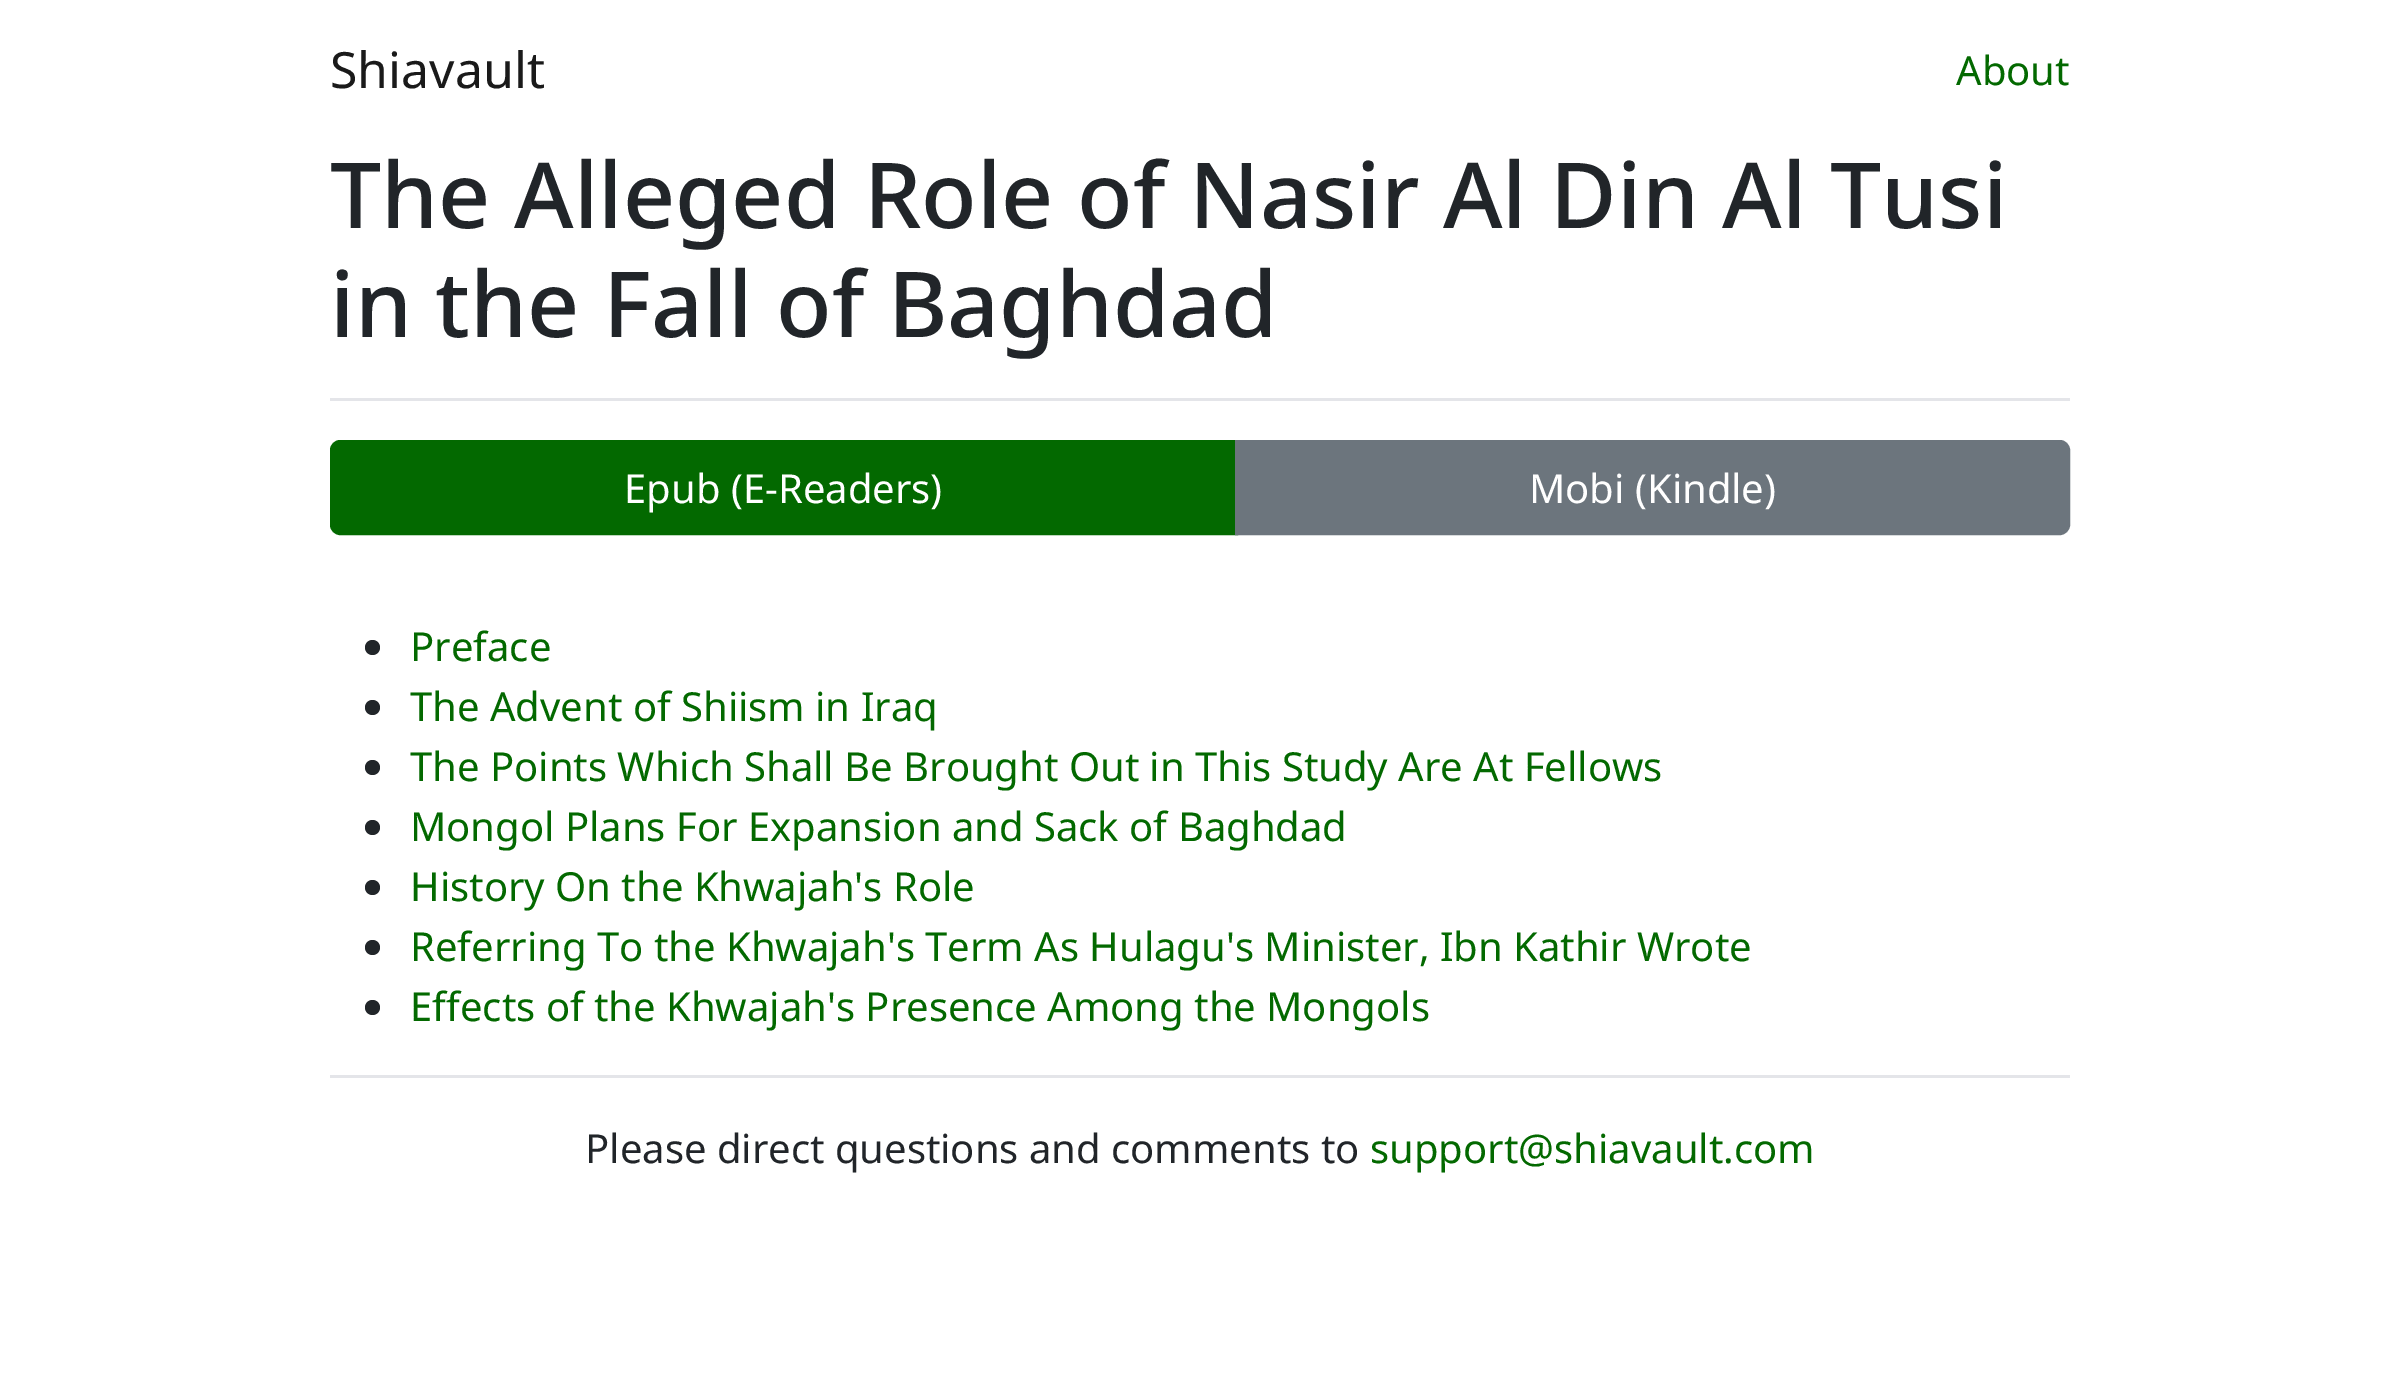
%!PS
<< /PageSize [2398 1398] >> setpagedevice
/mt/moveto load def
/li/lineto load def
/ct/curveto load def
/cp/closepath load def
/fl/fill load def
/st/stroke load def
/gs/gsave load def
/gr/grestore load def
/lw/setlinewidth load def
/co { dup -16 bitshift 255 div exch dup -8 bitshift 255 and 255 div exch 255 and 255 div setrgbcolor } def
/fn { [ exch dup neg 0 0 3 -1 roll 0 0 ] selectfont } def
/tx { co fn moveto show } def
/bx { co rectfill } def
/ci { newpath 0 360 arc closepath } def
0 1398 translate 1 -1 scale
4 setmiterlimit
0 0 2398 1398 16#FFFFFF bx
330 398 1740 3 16#E4E5E9 bx
16#036900 co
340 441.5 mt 1236.5 441.5 li 1236.5 533.5 li 340 533.5 li 335.5 533.5 331.5 529.5 331.5 525 ct 331.5 450 li 331.5 445.5 335.5 441.5 340 441.5 ct cp gs fl gr
3 lw
st
16#6C757D co
1236.5 441.5 mt 2060 441.5 li 2064.5 441.5 2068.5 445.5 2068.5 450 ct 2068.5 525 li 2068.5 529.5 2064.5 533.5 2060 533.5 ct 1236.5 533.5 li cp gs fl gr
st
16#212529 co
372.5 647.5 7.5 ci fl
372.5 707.5 7.5 ci fl
372.5 767.5 7.5 ci fl
372.5 827.5 7.5 ci fl
372.5 887.5 7.5 ci fl
372.5 947.5 7.5 ci fl
372.5 1007.5 7.5 ci fl
330 1075 1740 3 16#E4E5E9 bx
(Shiavault) 330 88 /NotoSans-Regular 50 16#1A1A1A tx
(About) 1956 85 /NotoSans-Regular 40 16#036900 tx
(The Alleged Role of Nasir Al Din Al Tusi) 330 228 /NotoSans-Medium 91 16#212529 tx
(in the Fall of Baghdad) 330 337 /NotoSans-Medium 91 16#212529 tx
(Epub \(E-Readers\)) 624 503 /NotoSans-Regular 40 16#FFFFFF tx
(Mobi \(Kindle\)) 1529 503 /NotoSans-Regular 40 16#FFFFFF tx
(Preface) 410 661 /NotoSans-Regular 40 16#036900 tx
(The Advent of Shiism in Iraq) 410 721 /NotoSans-Regular 40 16#036900 tx
(The Points Which Shall Be Brought Out in This Study Are At Fellows) 410 781 /NotoSans-Regular 40 16#036900 tx
(Mongol Plans For Expansion and Sack of Baghdad) 410 841 /NotoSans-Regular 40 16#036900 tx
(History On the Khwajah's Role) 410 901 /NotoSans-Regular 40 16#036900 tx
(Referring To the Khwajah's Term As Hulagu's Minister, Ibn Kathir Wrote) 410 961 /NotoSans-Regular 40 16#036900 tx
(Effects of the Khwajah's Presence Among the Mongols) 410 1021 /NotoSans-Regular 40 16#036900 tx
(Please direct questions and comments to) 585 1163 /NotoSans-Regular 40 16#212529 tx
(support@shiavault.com) 1370 1163 /NotoSans-Regular 40 16#036900 tx
showpage
